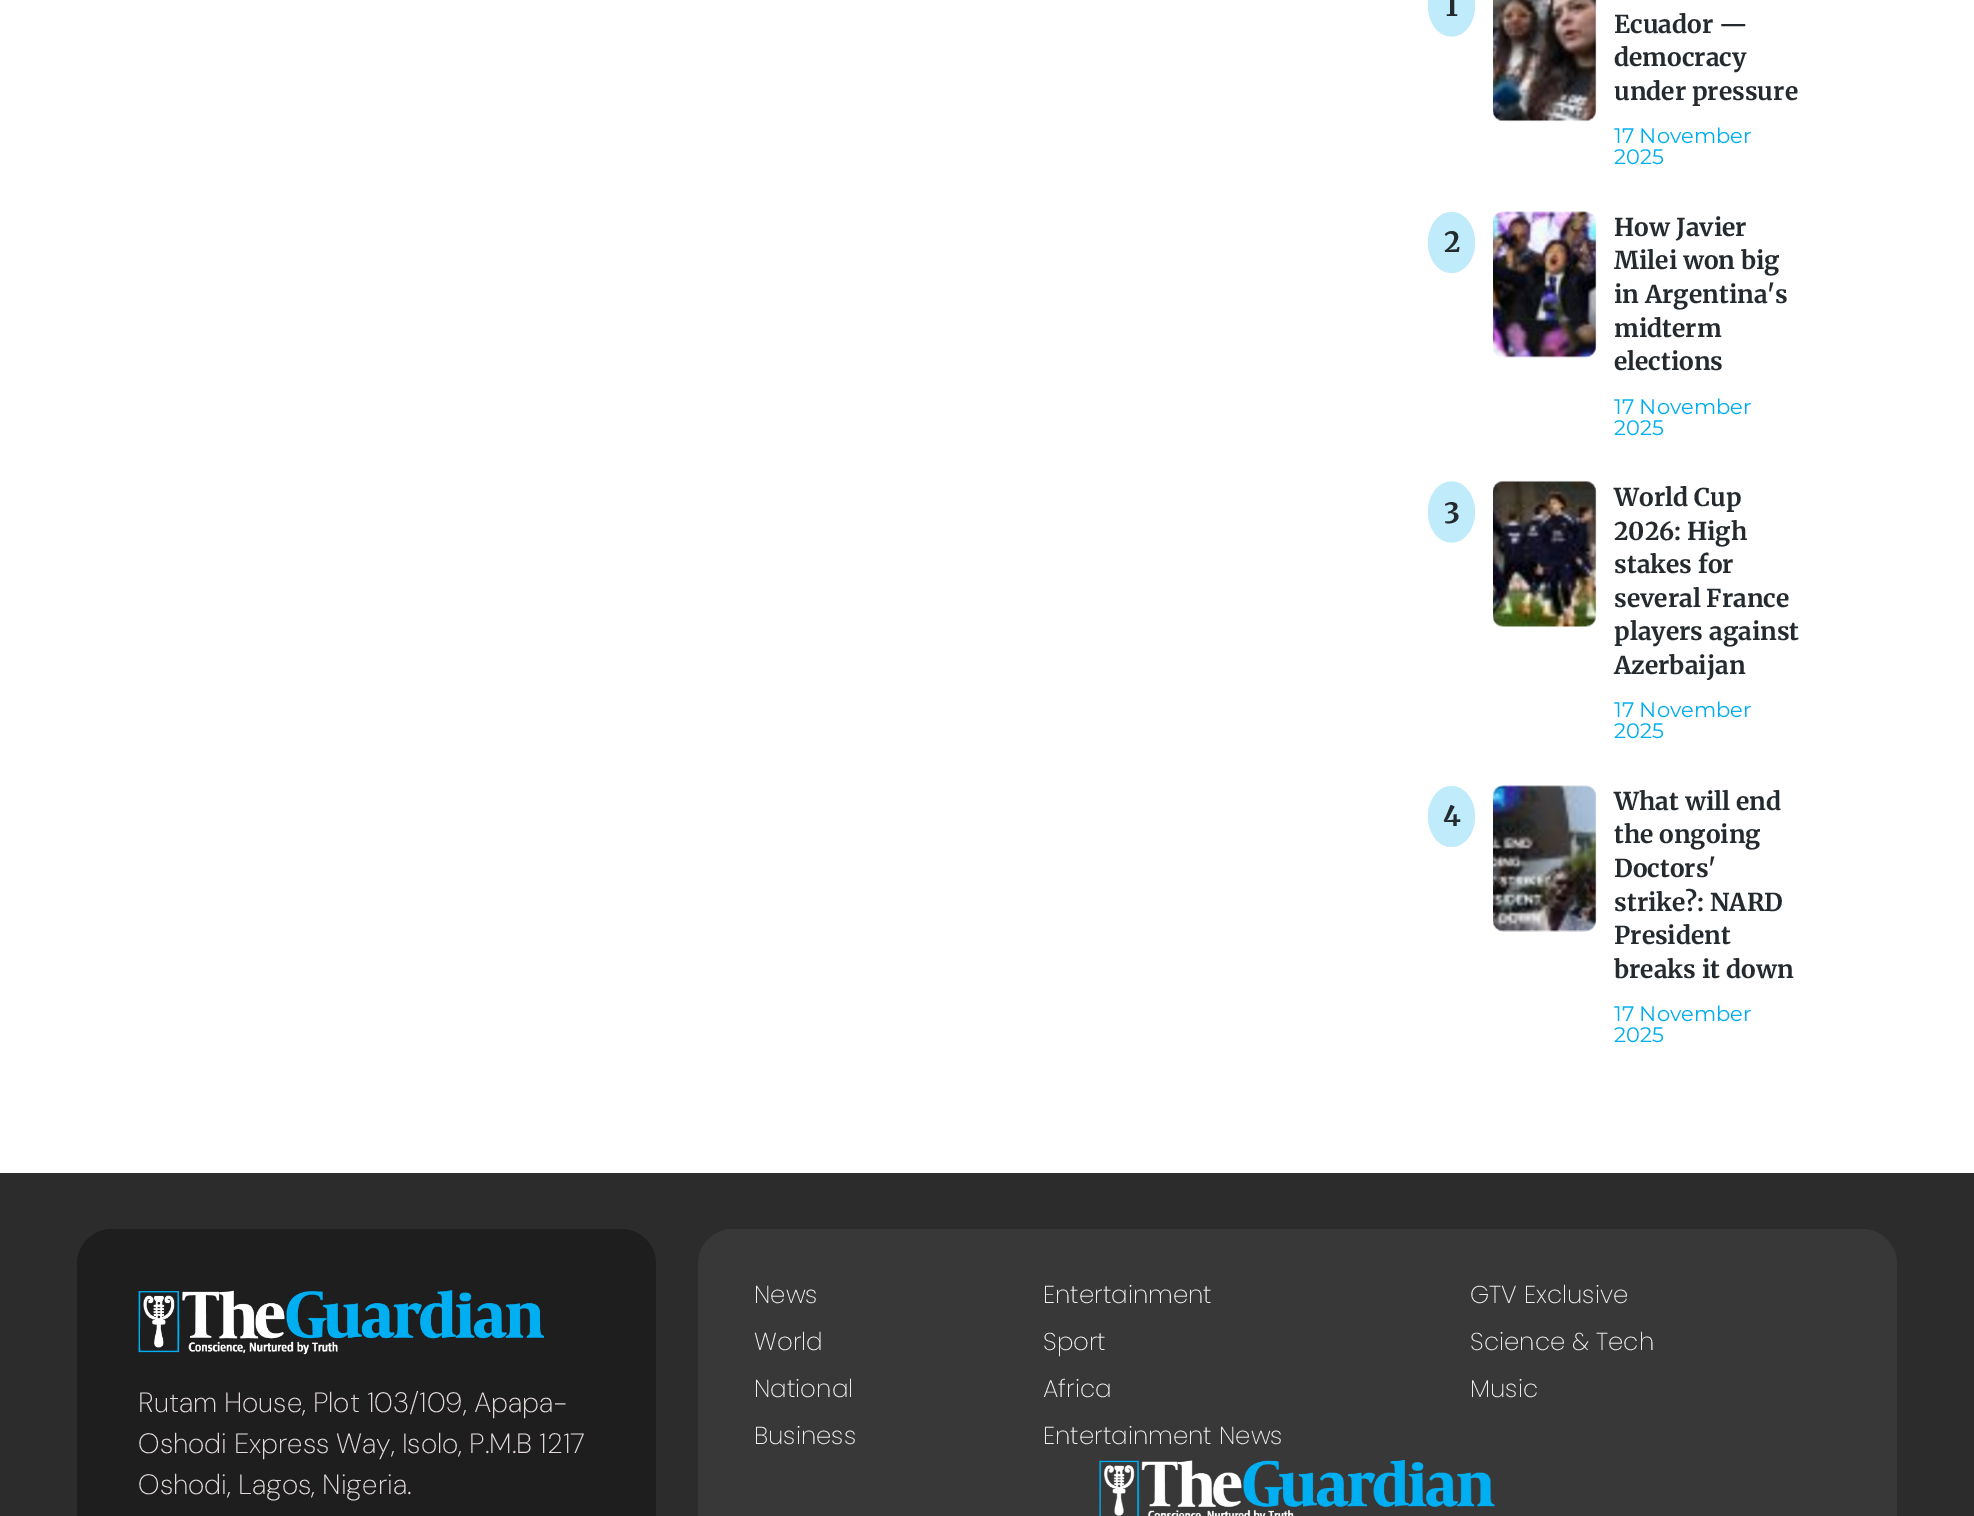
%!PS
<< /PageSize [1974 1516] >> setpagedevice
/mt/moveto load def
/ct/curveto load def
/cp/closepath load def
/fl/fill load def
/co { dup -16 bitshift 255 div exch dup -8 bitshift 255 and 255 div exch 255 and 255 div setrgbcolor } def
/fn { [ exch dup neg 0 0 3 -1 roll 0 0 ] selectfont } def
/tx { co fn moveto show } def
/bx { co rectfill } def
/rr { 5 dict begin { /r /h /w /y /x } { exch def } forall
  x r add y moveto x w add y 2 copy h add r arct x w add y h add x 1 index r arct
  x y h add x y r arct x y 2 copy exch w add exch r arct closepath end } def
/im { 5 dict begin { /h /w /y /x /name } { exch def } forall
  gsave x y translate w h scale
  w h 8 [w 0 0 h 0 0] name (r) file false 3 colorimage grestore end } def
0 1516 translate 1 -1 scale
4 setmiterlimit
0 0 1974 1516 16#FFFFFF bx
16#BFEBFB co
1451.5 -24.5 mt 1464.5 -24.5 1475 -11 1475 6 ct 1475 23 1464.5 36.5 1451.5 36.5 ct 1438.5 36.5 1428 23 1428 6 ct 1428 -11 1438.5 -24.5 1451.5 -24.5 ct cp fl
(media/1.raw) 1493 0 104 122 im
1451.5 212 mt 1464.5 212 1475 225.5 1475 242.5 ct 1475 259.5 1464.5 273 1451.5 273 ct 1438.5 273 1428 259.5 1428 242.5 ct 1428 225.5 1438.5 212 1451.5 212 ct cp fl
(media/2.raw) 1493 211 104 147 im
1451.5 481.5 mt 1464.5 481.5 1475 495 1475 512 ct 1475 529 1464.5 542.5 1451.5 542.5 ct 1438.5 542.5 1428 529 1428 512 ct 1428 495 1438.5 481.5 1451.5 481.5 ct cp fl
(media/3.raw) 1493 480 104 147 im
1451.5 786 mt 1464.5 786 1475 799.5 1475 816.5 ct 1475 833.5 1464.5 847 1451.5 847 ct 1438.5 847 1428 833.5 1428 816.5 ct 1428 799.5 1438.5 786 1451.5 786 ct cp fl
(media/4.raw) 1493 785 104 147 im
0 1173 1974 343 16#2C2C2C bx
16#1E1E1E co
77 1229 579 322 35 rr fl
(media/5.raw) 138 1290 406 65 im
16#383838 co
698 1229 1199 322 35 rr fl
(media/6.raw) 1099 1460 396 56 im
(1) 1445 16 /Merriweather-Bold 28 16#242A2E tx
(Ecuador —) 1614 33 /Merriweather-Bold 24.5 16#242A2E tx
(democracy) 1614 66 /Merriweather-Bold 24.5 16#242A2E tx
(under pressure) 1614 100 /Merriweather-Bold 24.5 16#242A2E tx
(17 November) 1614 143 /Montserrat-Regular 21 16#00AEEF tx
(2025) 1614 164 /Montserrat-Regular 21 16#00AEEF tx
(2) 1444 252 /Merriweather-Bold 28 16#242A2E tx
(How Javier) 1614 236 /Merriweather-Bold 24.5 16#242A2E tx
(Milei won big) 1614 269 /Merriweather-Bold 24.5 16#242A2E tx
(in Argentina's) 1614 303 /Merriweather-Bold 24.5 16#242A2E tx
(midterm) 1614 337 /Merriweather-Bold 24.5 16#242A2E tx
(elections) 1614 370 /Merriweather-Bold 24.5 16#242A2E tx
(17 November) 1614 414 /Montserrat-Regular 21 16#00AEEF tx
(2025) 1614 435 /Montserrat-Regular 21 16#00AEEF tx
(3) 1444 523 /Merriweather-Bold 28 16#242A2E tx
(World Cup) 1614 506 /Merriweather-Bold 24.5 16#242A2E tx
(2026: High) 1614 540 /Merriweather-Bold 24.5 16#242A2E tx
(stakes for) 1614 573 /Merriweather-Bold 24.5 16#242A2E tx
(several France) 1614 607 /Merriweather-Bold 24.5 16#242A2E tx
(players against) 1614 640 /Merriweather-Bold 24.5 16#242A2E tx
(Azerbaijan) 1614 674 /Merriweather-Bold 24.5 16#242A2E tx
(17 November) 1614 717 /Montserrat-Regular 21 16#00AEEF tx
(2025) 1614 738 /Montserrat-Regular 21 16#00AEEF tx
(4) 1443 826 /Merriweather-Bold 28 16#242A2E tx
(What will end) 1614 810 /Merriweather-Bold 24.5 16#242A2E tx
(the ongoing) 1614 843 /Merriweather-Bold 24.5 16#242A2E tx
(Doctors') 1614 877 /Merriweather-Bold 24.5 16#242A2E tx
(strike?: NARD) 1614 911 /Merriweather-Bold 24.5 16#242A2E tx
(President) 1614 944 /Merriweather-Bold 24.5 16#242A2E tx
(breaks it down) 1614 978 /Merriweather-Bold 24.5 16#242A2E tx
(17 November) 1614 1021 /Montserrat-Regular 21 16#00AEEF tx
(2025) 1614 1042 /Montserrat-Regular 21 16#00AEEF tx
(Rutam House, Plot 103/109, Apapa-) 138 1412 /DMSans-ExtraLight 28 16#E4DBDB tx
(Oshodi Express Way, Isolo, P.M.B 1217) 138 1453 /DMSans-ExtraLight 28 16#E4DBDB tx
(Oshodi, Lagos, Nigeria.) 138 1494 /DMSans-ExtraLight 28 16#E4DBDB tx
(News) 754 1303 /Poppins-ExtraLight 24.5 16#EFEFEF tx
(World) 754 1350 /Poppins-ExtraLight 24.5 16#EFEFEF tx
(National) 754 1397 /Poppins-ExtraLight 24.5 16#EFEFEF tx
(Business) 754 1444 /Poppins-ExtraLight 24.5 16#EFEFEF tx
(Entertainment) 1043 1303 /Poppins-ExtraLight 24.5 16#EFEFEF tx
(Sport) 1043 1350 /Poppins-ExtraLight 24.5 16#EFEFEF tx
(Africa) 1043 1397 /Poppins-ExtraLight 24.5 16#EFEFEF tx
(Entertainment News) 1043 1444 /Poppins-ExtraLight 24.5 16#EFEFEF tx
(GTV Exclusive) 1470 1303 /Poppins-ExtraLight 24.5 16#EFEFEF tx
(Science & Tech) 1470 1350 /Poppins-ExtraLight 24.5 16#EFEFEF tx
(Music) 1470 1397 /Poppins-ExtraLight 24.5 16#EFEFEF tx
showpage
